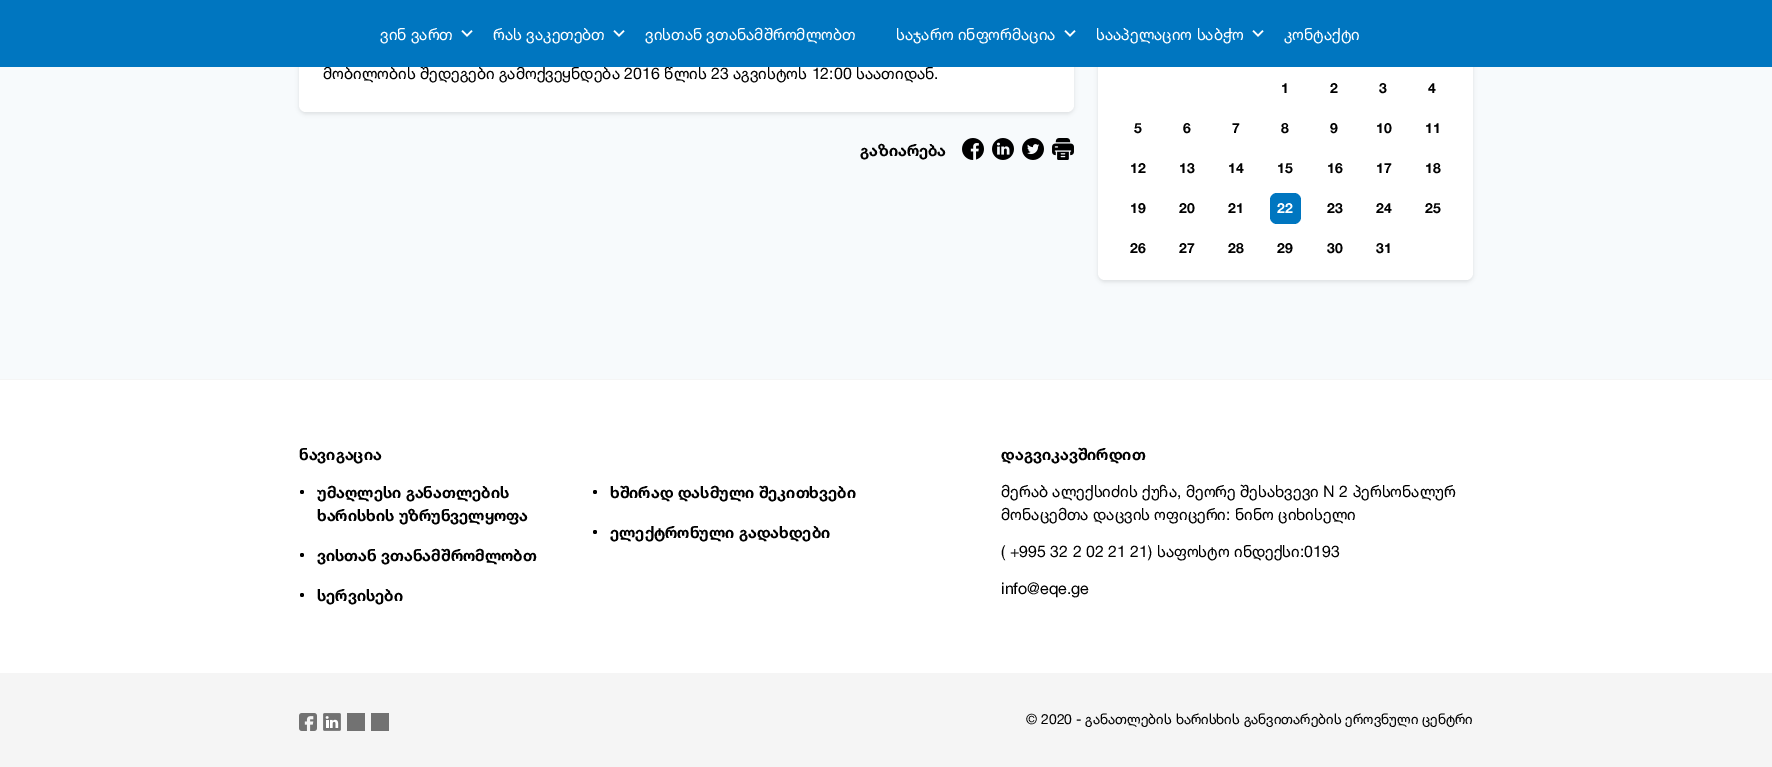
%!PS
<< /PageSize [1772 767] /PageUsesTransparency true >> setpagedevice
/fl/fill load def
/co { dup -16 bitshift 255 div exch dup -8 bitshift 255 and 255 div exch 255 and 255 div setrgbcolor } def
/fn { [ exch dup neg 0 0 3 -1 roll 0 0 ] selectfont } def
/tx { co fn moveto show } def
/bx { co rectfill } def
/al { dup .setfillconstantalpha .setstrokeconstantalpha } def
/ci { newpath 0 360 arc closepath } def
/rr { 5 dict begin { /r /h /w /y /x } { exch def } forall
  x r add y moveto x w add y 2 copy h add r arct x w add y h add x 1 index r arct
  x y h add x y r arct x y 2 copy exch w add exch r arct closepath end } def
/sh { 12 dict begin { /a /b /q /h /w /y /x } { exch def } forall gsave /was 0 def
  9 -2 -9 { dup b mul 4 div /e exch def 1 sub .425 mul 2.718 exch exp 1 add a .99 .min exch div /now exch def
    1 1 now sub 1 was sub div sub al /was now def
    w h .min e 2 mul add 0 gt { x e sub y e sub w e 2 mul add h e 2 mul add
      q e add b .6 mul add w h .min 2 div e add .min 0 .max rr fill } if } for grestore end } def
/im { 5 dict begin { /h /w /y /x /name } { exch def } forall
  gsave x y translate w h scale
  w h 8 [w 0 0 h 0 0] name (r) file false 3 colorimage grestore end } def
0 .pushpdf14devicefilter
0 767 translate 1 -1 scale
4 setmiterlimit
0 0 1772 767 16#F7FAFC bx
16#000000 co
299 -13 775 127 7 2 .1 sh
16#FFFFFF co
299 -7 775 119 7 rr fl
(media/2.raw) 962 138 22 22 im
(media/3.raw) 992 138 22 22 im
(media/4.raw) 1022 138 22 22 im
(media/5.raw) 1052 138 22 22 im
16#000000 co
1098 -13 375 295 7 2 .1 sh
16#FFFFFF co
1098 -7 375 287 7 rr fl
16#0076C0 co
1270 193 31 31 7 rr fl
0 380 1772 293 16#FFFFFF bx
0 379 1772 1 16#F5F5F5 bx
16#000000 co
302 492 2 ci fl
302 555 2 ci fl
302 595 2 ci fl
595 492 2 ci fl
595 532 2 ci fl
0 673 1772 94 16#F5F5F5 bx
(media/6.raw) 299 713 18 18 im
(media/7.raw) 323 713 18 18 im
347 713 18 18 16#727272 bx
371 713 18 18 16#727272 bx
(მობილობის შედეგები გამოქვეყნდება 2016 წლის 23 აგვისტოს 12:00 საათიდან.) 323 79 /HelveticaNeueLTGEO-Regular 16 16#000000 tx
0 0 1772 67 16#0076C0 bx
(კონტაქტი) 1284 40 /HelveticaNeueLTGEO-Regular 16 16#FFFFFF tx
(სააპელაციო საბჭო) 1096 40 /HelveticaNeueLTGEO-Regular 16 16#FFFFFF tx
(media/1.raw) 1252 30 12 7 im
(საჯარო ინფორმაცია) 896 40 /HelveticaNeueLTGEO-Regular 16 16#FFFFFF tx
(media/1.raw) 1064 30 12 7 im
(ვისთან ვთანამშრომლობთ) 645 40 /HelveticaNeueLTGEO-Regular 16 16#FFFFFF tx
(რას ვაკეთებთ) 493 40 /HelveticaNeueLTGEO-Regular 16 16#FFFFFF tx
(media/1.raw) 613 30 12 7 im
(ვინ ვართ) 380 40 /HelveticaNeueLTGEO-Regular 16 16#FFFFFF tx
(media/1.raw) 461 30 12 7 im
(გაზიარება) 860 156 /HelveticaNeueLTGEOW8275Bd-Bold 16 16#000000 tx
(1) 1281 93 /HelveticaNeueLTGEOW8275Bd-Bold 14 16#000000 tx
(2) 1330 93 /HelveticaNeueLTGEOW8275Bd-Bold 14 16#000000 tx
(3) 1379 93 /HelveticaNeueLTGEOW8275Bd-Bold 14 16#000000 tx
(4) 1428 93 /HelveticaNeueLTGEOW8275Bd-Bold 14 16#000000 tx
(5) 1134 133 /HelveticaNeueLTGEOW8275Bd-Bold 14 16#000000 tx
(6) 1183 133 /HelveticaNeueLTGEOW8275Bd-Bold 14 16#000000 tx
(7) 1232 133 /HelveticaNeueLTGEOW8275Bd-Bold 14 16#000000 tx
(8) 1281 133 /HelveticaNeueLTGEOW8275Bd-Bold 14 16#000000 tx
(9) 1330 133 /HelveticaNeueLTGEOW8275Bd-Bold 14 16#000000 tx
(10) 1376 133 /HelveticaNeueLTGEOW8275Bd-Bold 14 16#000000 tx
(11) 1425 133 /HelveticaNeueLTGEOW8275Bd-Bold 14 16#000000 tx
(12) 1130 173 /HelveticaNeueLTGEOW8275Bd-Bold 14 16#000000 tx
(13) 1179 173 /HelveticaNeueLTGEOW8275Bd-Bold 14 16#000000 tx
(14) 1228 173 /HelveticaNeueLTGEOW8275Bd-Bold 14 16#000000 tx
(15) 1277 173 /HelveticaNeueLTGEOW8275Bd-Bold 14 16#000000 tx
(16) 1327 173 /HelveticaNeueLTGEOW8275Bd-Bold 14 16#000000 tx
(17) 1376 173 /HelveticaNeueLTGEOW8275Bd-Bold 14 16#000000 tx
(18) 1425 173 /HelveticaNeueLTGEOW8275Bd-Bold 14 16#000000 tx
(19) 1130 213 /HelveticaNeueLTGEOW8275Bd-Bold 14 16#000000 tx
(20) 1179 213 /HelveticaNeueLTGEOW8275Bd-Bold 14 16#000000 tx
(21) 1228 213 /HelveticaNeueLTGEOW8275Bd-Bold 14 16#000000 tx
(22) 1277 213 /HelveticaNeueLTGEOW8275Bd-Bold 14 16#FFFFFF tx
(23) 1327 213 /HelveticaNeueLTGEOW8275Bd-Bold 14 16#000000 tx
(24) 1376 213 /HelveticaNeueLTGEOW8275Bd-Bold 14 16#000000 tx
(25) 1425 213 /HelveticaNeueLTGEOW8275Bd-Bold 14 16#000000 tx
(26) 1130 253 /HelveticaNeueLTGEOW8275Bd-Bold 14 16#000000 tx
(27) 1179 253 /HelveticaNeueLTGEOW8275Bd-Bold 14 16#000000 tx
(28) 1228 253 /HelveticaNeueLTGEOW8275Bd-Bold 14 16#000000 tx
(29) 1277 253 /HelveticaNeueLTGEOW8275Bd-Bold 14 16#000000 tx
(30) 1327 253 /HelveticaNeueLTGEOW8275Bd-Bold 14 16#000000 tx
(31) 1376 253 /HelveticaNeueLTGEOW8275Bd-Bold 14 16#000000 tx
(ნავიგაცია) 299 460 /HelveticaNeueLTGEOW8275Bd-Bold 16 16#000000 tx
(უმაღლესი განათლების) 317 498 /HelveticaNeueLTGEOW8275Bd-Bold 16 16#000000 tx
(ხარისხის უზრუნველყოფა) 317 521 /HelveticaNeueLTGEOW8275Bd-Bold 16 16#000000 tx
(ვისთან ვთანამშრომლობთ) 317 561 /HelveticaNeueLTGEOW8275Bd-Bold 16 16#000000 tx
(სერვისები) 317 601 /HelveticaNeueLTGEOW8275Bd-Bold 16 16#000000 tx
(ხშირად დასმული შეკითხვები) 610 498 /HelveticaNeueLTGEOW8275Bd-Bold 16 16#000000 tx
(ელექტრონული გადახდები) 610 538 /HelveticaNeueLTGEOW8275Bd-Bold 16 16#000000 tx
(დაგვიკავშირდით) 1001 460 /HelveticaNeueLTGEOW8275Bd-Bold 16 16#000000 tx
(მერაბ ალექსიძის ქუჩა, მეორე შესახვევი N 2 პერსონალურ) 1001 497 /HelveticaNeueLTGEO-Regular 16 16#000000 tx
(მონაცემთა დაცვის ოფიცერი: ნინო ციხისელი) 1001 520 /HelveticaNeueLTGEO-Regular 16 16#000000 tx
(\( +995 32 2 02 21 21\) საფოსტო ინდექსი:0193) 1001 557 /HelveticaNeueLTGEO-Regular 16 16#000000 tx
(info@eqe.ge) 1001 594 /HelveticaNeueLTGEO-Regular 16 16#000000 tx
(© 2020 - განათლების ხარისხის განვითარების ეროვნული ცენტრი) 1026 724 /HelveticaNeueLTGEO-Regular 14 16#000000 tx
.poppdf14devicefilter showpage
